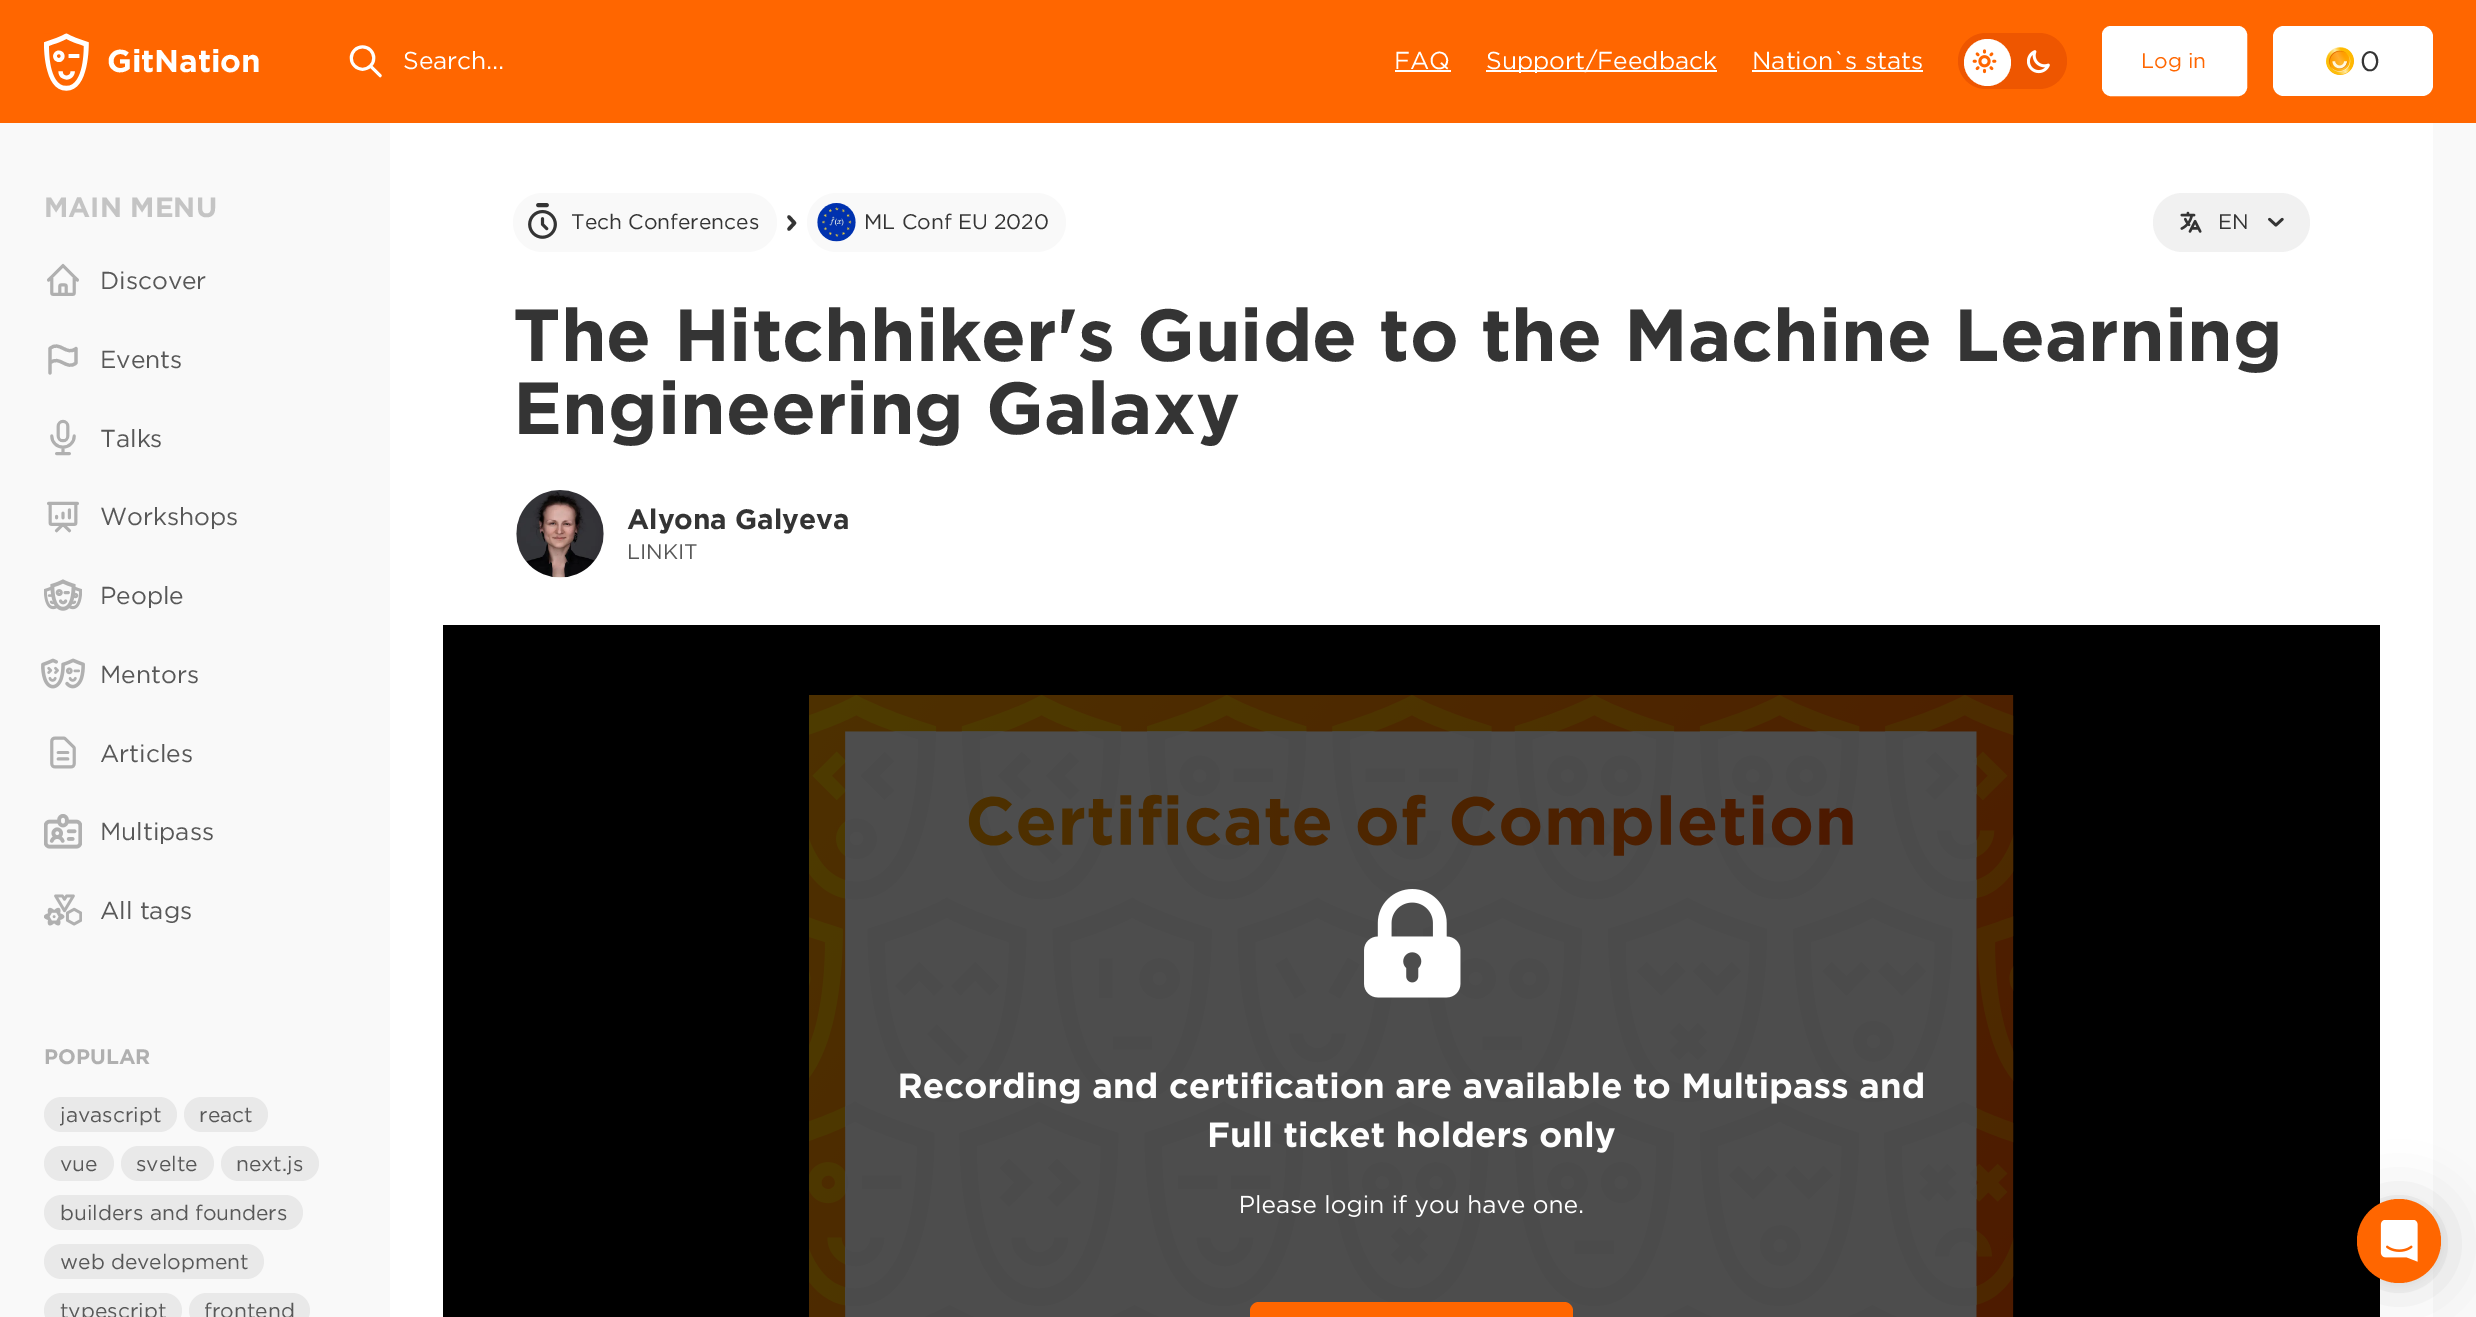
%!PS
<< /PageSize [2476 1317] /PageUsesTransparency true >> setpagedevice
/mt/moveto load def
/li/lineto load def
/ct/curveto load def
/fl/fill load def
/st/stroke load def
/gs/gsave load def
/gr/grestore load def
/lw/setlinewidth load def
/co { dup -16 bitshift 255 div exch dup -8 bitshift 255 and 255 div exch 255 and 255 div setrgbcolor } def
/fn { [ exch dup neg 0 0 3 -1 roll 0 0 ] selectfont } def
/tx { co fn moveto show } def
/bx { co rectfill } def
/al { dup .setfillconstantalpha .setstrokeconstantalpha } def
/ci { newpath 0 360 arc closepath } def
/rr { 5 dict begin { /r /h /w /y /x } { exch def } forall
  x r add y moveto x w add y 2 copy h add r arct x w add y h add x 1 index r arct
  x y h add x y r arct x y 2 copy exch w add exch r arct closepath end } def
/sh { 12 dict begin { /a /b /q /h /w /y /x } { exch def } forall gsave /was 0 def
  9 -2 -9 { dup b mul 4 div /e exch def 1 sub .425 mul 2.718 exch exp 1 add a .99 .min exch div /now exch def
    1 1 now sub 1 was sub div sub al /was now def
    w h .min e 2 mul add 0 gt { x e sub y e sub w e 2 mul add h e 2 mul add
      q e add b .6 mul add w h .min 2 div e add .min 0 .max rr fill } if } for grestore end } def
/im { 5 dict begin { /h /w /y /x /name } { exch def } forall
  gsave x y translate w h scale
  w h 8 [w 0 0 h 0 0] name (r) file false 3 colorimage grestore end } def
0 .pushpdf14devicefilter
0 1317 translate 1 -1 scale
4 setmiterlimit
0 0 2476 1317 16#F9F9F9 bx
0 0 2476 123 16#FF6600 bx
(media/1.raw) 44 33 45 58 im
(media/2.raw) 349 45 33 33 im
1395 70 56 2 16#FFFFFF bx
1486 70 231 2 16#FFFFFF bx
1752 70 171 2 16#FFFFFF bx
16#EE5600 co
1958 33 109 56 28 rr fl
16#FFFFFF co
1987.5 62.5 23.5 ci fl
(media/3.raw) 1972 49 25 25 im
(media/4.raw) 2027 50 23 24 im
2104 28 141 66 7 rr gs fl gr
4 lw
st
2273 26 160 70 11 rr fl
(media/5.raw) 2326 47 28 28 im
(media/6.raw) 47 263 32 33 im
16#B0B0B0 co
3.2 lw
1 setlinecap
1 setlinejoin
50 373 mt 50 348.5 li 50 363 mt 59.5 354.5 66.5 371 76 363 ct 76 348.5 li 66.5 356.5 59.5 340 50 348.5 ct st
(media/7.raw) 50 419 26 37 im
(media/8.raw) 47 501 32 32 im
(media/9.raw) 44 579 38 32 im
(media/10.raw) 41 658 44 31 im
(media/11.raw) 50 736 26 33 im
(media/12.raw) 44 814 38 35 im
(media/13.raw) 44 894 38 32 im
16#E9E9E9 co
44 1097 133 35 17.5 rr fl
184 1097 84 35 17.5 rr fl
44 1146 70 35 17.5 rr fl
121 1146 93 35 17.5 rr fl
221 1146 98 35 17.5 rr fl
44 1195 259 35 17.5 rr fl
44 1244 220 35 17.5 rr fl
44 1293 138 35 17.5 rr fl
189 1293 121 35 17.5 rr fl
390 123 2043 1194 16#FFFFFF bx
16#F9F9F9 co
513 193 264 59 29.5 rr fl
(media/14.raw) 528 203 29 36 im
16#343434 co
3.5 lw
789 217 mt 794.5 223 li 789 229 li st
16#F9F9F9 co
807 193 259 59 29.5 rr fl
(media/15.raw) 817 203 39 39 im
16#F1F1F1 co
2153 193 157 59 29.5 rr fl
(media/16.raw) 2268 217 16 10 im
(media/17.raw) 2180 211 22 22 im
(media/18.raw) 516 490 88 88 im
443 625 1937 692 16#000000 bx
2357 1202 84 84 42 28 .16 sh
2357 1201 84 84 42 5 .06 sh
16#FF6600 co
2399 1241 42 ci fl
(media/21.raw) 2380 1220 38 42 im
(GitNation) 107 72 /Gotham-Bold 31.5 16#FFFFFF tx
(Search...) 403 69 /Gotham-Regular 24.5 16#FFFFFF tx
(FAQ) 1394 69 /Gotham-Regular 24.5 16#FFFFFF tx
(Support/Feedback) 1486 69 /Gotham-Regular 24.5 16#FFFFFF tx
(Nation`s stats) 1752 69 /Gotham-Regular 24.5 16#FFFFFF tx
(Log in) 2141 68 /Gotham-Regular 21 16#FF6600 tx
(0) 2360 71 /Gotham-Regular 28 16#343434 tx
(MAIN MENU) 44 217 /Gotham-Bold 28 16#C4C4C4 tx
(Discover) 100 289 /Gotham-Regular 24.5 16#585858 tx
(Events) 100 368 /Gotham-Regular 24.5 16#585858 tx
(Talks) 100 447 /Gotham-Regular 24.5 16#585858 tx
(Workshops) 100 525 /Gotham-Regular 24.5 16#585858 tx
(People) 100 604 /Gotham-Regular 24.5 16#585858 tx
(Mentors) 100 683 /Gotham-Regular 24.5 16#585858 tx
(Articles) 100 762 /Gotham-Regular 24.5 16#585858 tx
(Multipass) 100 840 /Gotham-Regular 24.5 16#585858 tx
(All tags) 100 919 /Gotham-Regular 24.5 16#585858 tx
(POPULAR) 44 1064 /Gotham-Bold 21 16#B0B0B0 tx
(javascript) 60 1122 /Gotham-Regular 21 16#585858 tx
(react) 199 1122 /Gotham-Regular 21 16#585858 tx
(vue) 60 1171 /Gotham-Regular 21 16#585858 tx
(svelte) 136 1171 /Gotham-Regular 21 16#585858 tx
(next.js) 236 1171 /Gotham-Regular 21 16#585858 tx
(builders and founders) 60 1220 /Gotham-Regular 21 16#585858 tx
(web development) 60 1269 /Gotham-Regular 21 16#585858 tx
(typescript) 60 1318 /Gotham-Regular 21 16#585858 tx
(frontend) 204 1318 /Gotham-Regular 21 16#585858 tx
(Tech Conferences) 571 229 /Gotham-Regular 21 16#343434 tx
(ML Conf EU 2020) 864 229 /Gotham-Regular 21 16#343434 tx
(EN) 2218 229 /Gotham-Regular 21 16#343434 tx
(The Hitchhiker's Guide to the Machine Learning) 513 361 /Gotham-Bold 73.5 16#343434 tx
(Engineering Galaxy) 513 434 /Gotham-Bold 73.5 16#343434 tx
(Alyona Galyeva) 627 529 /Gotham-Bold 28 16#343434 tx
(LINKIT) 627 559 /Gotham-Regular 21 16#585858 tx
(Recording and certification are available to Multipass and) 897 1098 /Gotham-Bold 35 16#FFFFFF tx
(Full ticket holders only) 1207 1147 /Gotham-Bold 35 16#FFFFFF tx
(Please login if you have one.) 1239 1213 /Gotham-Regular 24.5 16#FFFFFF tx
(media/19.raw) 809 695 1205 622 im
(media/20.raw) 1364 889 97 109 im
16#FF6600 co
1250 1302 323 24 9 rr fl
.poppdf14devicefilter showpage
